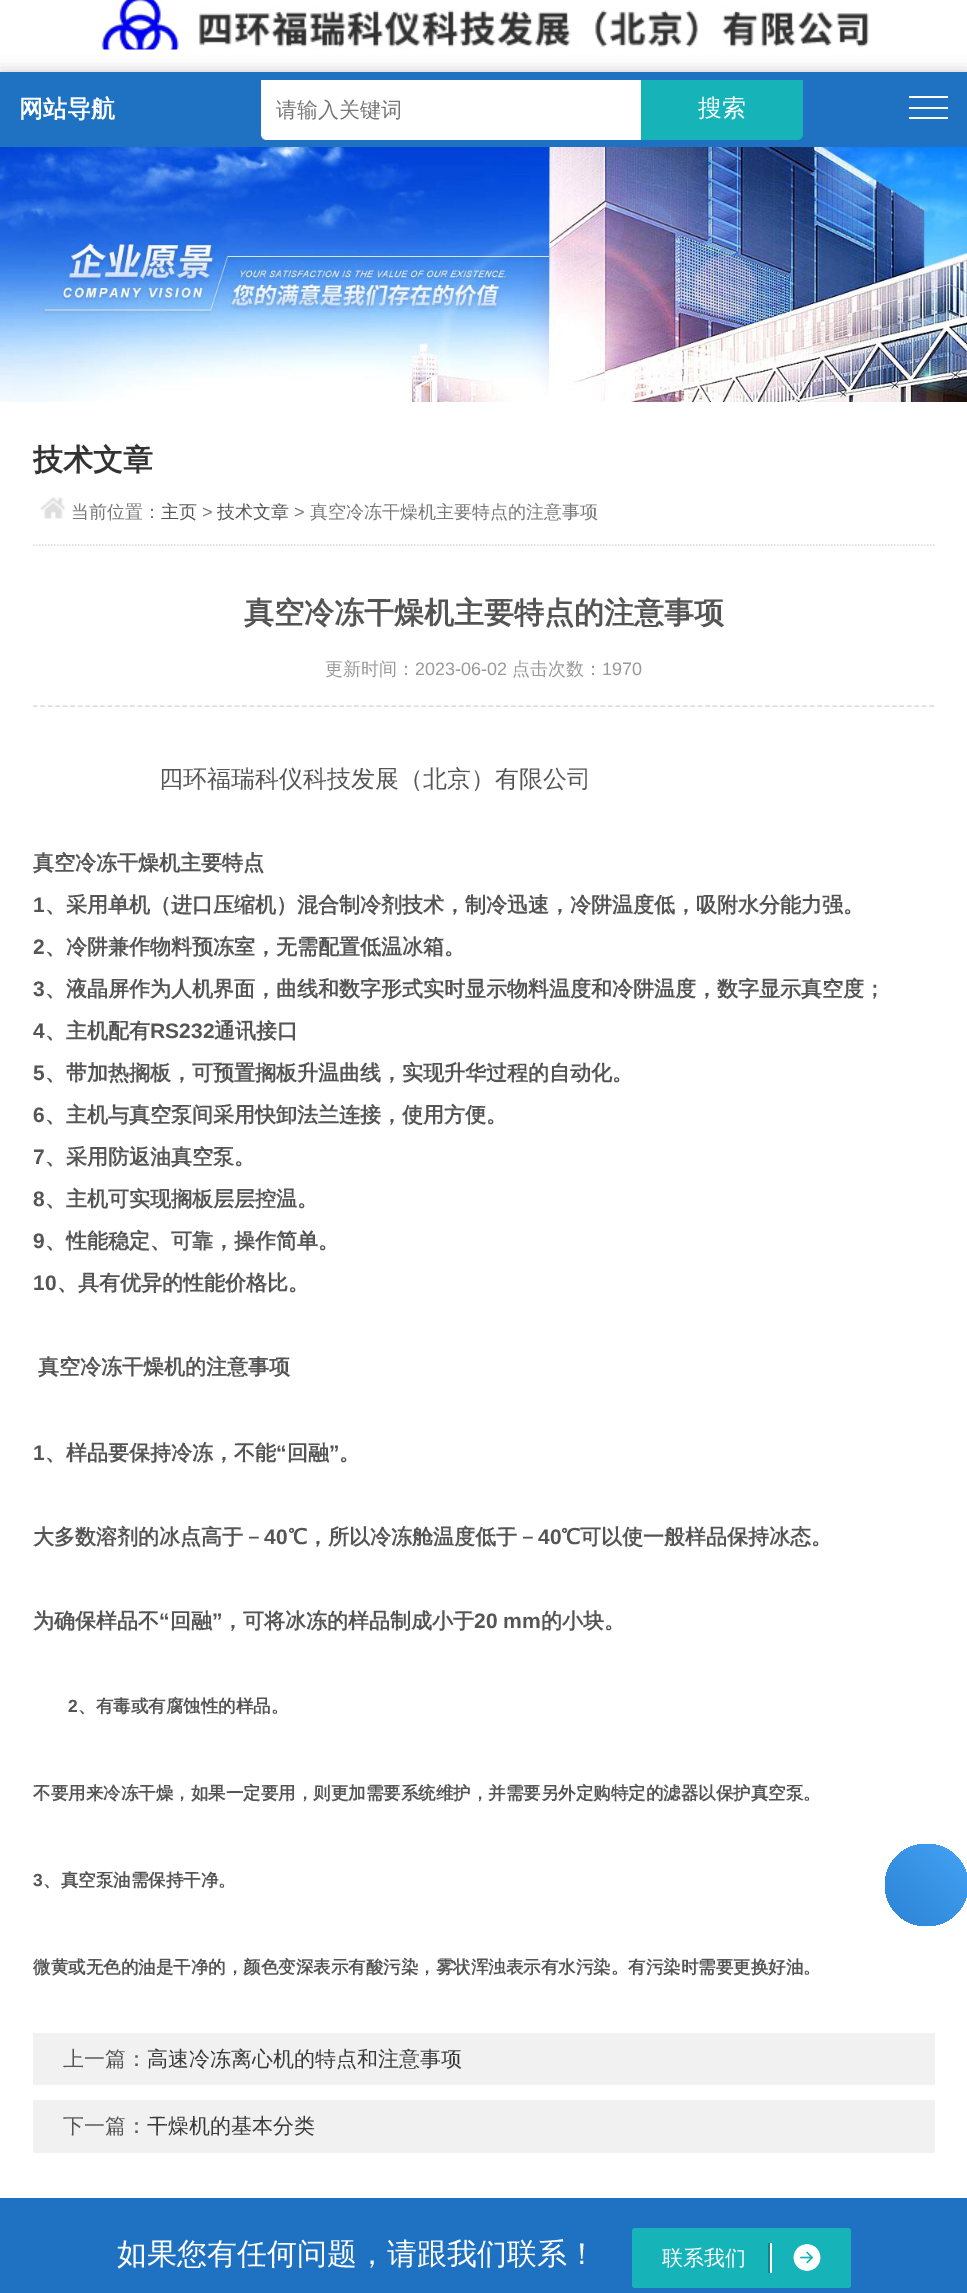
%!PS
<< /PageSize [967 2293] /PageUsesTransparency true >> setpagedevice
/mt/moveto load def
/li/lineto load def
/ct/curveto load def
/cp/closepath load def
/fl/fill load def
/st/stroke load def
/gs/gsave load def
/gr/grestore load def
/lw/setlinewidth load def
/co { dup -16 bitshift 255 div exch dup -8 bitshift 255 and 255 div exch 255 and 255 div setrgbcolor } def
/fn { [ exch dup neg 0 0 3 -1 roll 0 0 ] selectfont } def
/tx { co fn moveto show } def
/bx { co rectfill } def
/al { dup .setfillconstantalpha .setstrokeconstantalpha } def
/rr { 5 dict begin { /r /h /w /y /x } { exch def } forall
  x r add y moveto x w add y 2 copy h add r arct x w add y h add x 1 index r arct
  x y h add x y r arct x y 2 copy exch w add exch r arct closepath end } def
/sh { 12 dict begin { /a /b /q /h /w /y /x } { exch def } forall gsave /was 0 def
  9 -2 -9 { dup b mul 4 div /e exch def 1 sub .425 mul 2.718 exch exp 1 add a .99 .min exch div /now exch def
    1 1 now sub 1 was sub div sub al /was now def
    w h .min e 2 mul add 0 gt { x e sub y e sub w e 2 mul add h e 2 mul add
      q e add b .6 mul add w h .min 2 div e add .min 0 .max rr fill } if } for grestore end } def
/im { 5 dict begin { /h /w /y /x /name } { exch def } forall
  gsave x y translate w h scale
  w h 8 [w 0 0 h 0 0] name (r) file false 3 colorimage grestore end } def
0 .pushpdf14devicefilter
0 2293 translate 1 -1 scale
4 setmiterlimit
0 0 967 2293 16#FFFFFF bx
(media/1.raw) 101 0 768 50 im
16#000000 co
0 72 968 75 0 7.5 .2 sh
0 72 967 75 16#1F71C2 bx
909 96 39 2 16#FFFFFF bx
909 107 39 2 16#FFFFFF bx
909 117 39 2 16#FFFFFF bx
261 80 mt 641 80 li 641 140 li 267 140 li 263.5 140 261 137.5 261 134 ct cp fl
16#16B4B9 co
641 80 mt 803 80 li 803 134 li 803 137.5 800.5 140 797 140 ct 641 140 li cp fl
(media/2.raw) 0 147 967 255 im
16#DEDEDE co
1.5 lw
[1.5 1.5] 0 setdash
33 545 mt 934.5 545 li st
(media/3.raw) 40 497 25 22 im
[4.5 2.97] 0 setdash
33 706 mt 934.5 706 li st
33 2033 902 52 16#F1F1F1 bx
33 2100 902 53 16#F1F1F1 bx
gs 885 1844 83 82 41 rr clip newpath
<< /ShadingType 2 /ColorSpace /DeviceRGB /Coords [885 1926 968 1844] /Extend [true true] /Function << /FunctionType 2 /Domain [0 1] /C0 [.173 .514 .831] /C1 [.267 .635 .961] /N 1 >> >> shfill gr
0 2198 967 95 16#1F71C2 bx
16#16B4B9 co
632 2228 219 60 3 rr fl
768 2243 2 30 16#138488 bx
770 2243 2 30 16#FFFFFF bx
(media/4.raw) 793 2244 28 27 im
(网站导航) 19 117 /WenQuanYiZenHei-Bold 24 16#FFFFFF tx
(请输入关键词) 276 117 /WenQuanYiZenHei-Medium 21 16#777777 tx
(搜索) 698 116 /WenQuanYiZenHei-Medium 24 16#FFFFFF tx
(技术文章) 33 470 /WenQuanYiZenHei-Bold 30 16#333333 tx
(当前位置：) 71 518 /WenQuanYiZenHei-Medium 18 16#777777 tx
(主页) 161 518 /WenQuanYiZenHei-Medium 18 16#555555 tx
(>) 202 518 /LiberationSans-Regular 18 16#777777 tx
(技术文章) 217 518 /WenQuanYiZenHei-Medium 18 16#555555 tx
(>) 294 518 /LiberationSans-Regular 18 16#777777 tx
(真空冷冻干燥机主要特点的注意事项) 310 518 /WenQuanYiZenHei-Medium 18 16#777777 tx
(真空冷冻干燥机主要特点的注意事项) 244 623 /WenQuanYiZenHei-Bold 30 16#555555 tx
(更新时间：) 325 675 /WenQuanYiZenHei-Medium 18 16#999999 tx
(2023-06-02) 415 675 /LiberationSans-Regular 18 16#999999 tx
(点击次数：) 512 675 /WenQuanYiZenHei-Medium 18 16#999999 tx
(1970) 602 675 /LiberationSans-Regular 18 16#999999 tx
(四环福瑞科仪科技发展（北京）有限公司) 159 787 /WenQuanYiZenHei-Medium 24 16#555555 tx
(真空冷冻干燥机主要特点) 33 870 /WenQuanYiZenHei-Bold 21 16#555555 tx
(1) 33 912 /LiberationSans-Bold 21 16#555555 tx
(、采用单机（进口压缩机）混合制冷剂技术，制冷迅速，冷阱温度低，吸附水分能力强。) 45 912 /WenQuanYiZenHei-Bold 21 16#555555 tx
(2) 33 954 /LiberationSans-Bold 21 16#555555 tx
(、冷阱兼作物料预冻室，无需配置低温冰箱。) 45 954 /WenQuanYiZenHei-Bold 21 16#555555 tx
(3) 33 996 /LiberationSans-Bold 21 16#555555 tx
(、液晶屏作为人机界面，曲线和数字形式实时显示物料温度和冷阱温度，数字显示真空度；) 45 996 /WenQuanYiZenHei-Bold 21 16#555555 tx
(4) 33 1038 /LiberationSans-Bold 21 16#555555 tx
(、主机配有) 45 1038 /WenQuanYiZenHei-Bold 21 16#555555 tx
(RS232) 150 1038 /LiberationSans-Bold 21 16#555555 tx
(通讯接口) 214 1038 /WenQuanYiZenHei-Bold 21 16#555555 tx
(5) 33 1080 /LiberationSans-Bold 21 16#555555 tx
(、带加热搁板，可预置搁板升温曲线，实现升华过程的自动化。) 45 1080 /WenQuanYiZenHei-Bold 21 16#555555 tx
(6) 33 1122 /LiberationSans-Bold 21 16#555555 tx
(、主机与真空泵间采用快卸法兰连接，使用方便。) 45 1122 /WenQuanYiZenHei-Bold 21 16#555555 tx
(7) 33 1164 /LiberationSans-Bold 21 16#555555 tx
(、采用防返油真空泵。) 45 1164 /WenQuanYiZenHei-Bold 21 16#555555 tx
(8) 33 1206 /LiberationSans-Bold 21 16#555555 tx
(、主机可实现搁板层层控温。) 45 1206 /WenQuanYiZenHei-Bold 21 16#555555 tx
(9) 33 1248 /LiberationSans-Bold 21 16#555555 tx
(、性能稳定、可靠，操作简单。) 45 1248 /WenQuanYiZenHei-Bold 21 16#555555 tx
(10) 33 1290 /LiberationSans-Bold 21 16#555555 tx
(、具有优异的性能价格比。) 57 1290 /WenQuanYiZenHei-Bold 21 16#555555 tx
(真空冷冻干燥机的注意事项) 38 1374 /WenQuanYiZenHei-Bold 21 16#555555 tx
(1) 33 1460 /LiberationSans-Bold 21 16#555555 tx
(、样品要保持冷冻，不能) 45 1460 /WenQuanYiZenHei-Bold 21 16#555555 tx
(“) 276 1460 /LiberationSans-Bold 21 16#555555 tx
(回融) 287 1460 /WenQuanYiZenHei-Bold 21 16#555555 tx
(”) 329 1460 /LiberationSans-Bold 21 16#555555 tx
(。) 339 1460 /WenQuanYiZenHei-Bold 21 16#555555 tx
(大多数溶剂的冰点高于－) 33 1544 /WenQuanYiZenHei-Bold 21 16#555555 tx
(40) 264 1544 /LiberationSans-Bold 21 16#555555 tx
(℃，所以冷冻舱温度低于－) 288 1544 /WenQuanYiZenHei-Bold 21 16#555555 tx
(40) 538 1544 /LiberationSans-Bold 21 16#555555 tx
(℃可以使一般样品保持冰态。) 561 1544 /WenQuanYiZenHei-Bold 21 16#555555 tx
(为确保样品不) 33 1628 /WenQuanYiZenHei-Bold 21 16#555555 tx
(“) 159 1628 /LiberationSans-Bold 21 16#555555 tx
(回融) 170 1628 /WenQuanYiZenHei-Bold 21 16#555555 tx
(”) 212 1628 /LiberationSans-Bold 21 16#555555 tx
(，可将冰冻的样品制成小于) 222 1628 /WenQuanYiZenHei-Bold 21 16#555555 tx
(20 mm) 474 1628 /LiberationSans-Bold 21 16#555555 tx
(的小块。) 541 1628 /WenQuanYiZenHei-Bold 21 16#555555 tx
(2) 68 1712 /LiberationSans-Bold 17.5 16#555555 tx
(、有毒或有腐蚀性的样品。) 78 1712 /WenQuanYiZenHei-Bold 17.5 16#555555 tx
(不要用来冷冻干燥，如果一定要用，则更加需要系统维护，并需要另外定购特定的滤器以保护真空泵。) 33 1799 /WenQuanYiZenHei-Bold 17.5 16#555555 tx
(3) 33 1886 /LiberationSans-Bold 17.5 16#555555 tx
(、真空泵油需保持干净。) 43 1886 /WenQuanYiZenHei-Bold 17.5 16#555555 tx
(微黄或无色的油是干净的，颜色变深表示有酸污染，雾状浑浊表示有水污染。有污染时需要更换好油。) 33 1973 /WenQuanYiZenHei-Bold 17.5 16#555555 tx
(上一篇：) 63 2066 /WenQuanYiZenHei-Medium 21 16#555555 tx
(高速冷冻离心机的特点和注意事项) 147 2066 /WenQuanYiZenHei-Medium 21 16#3A3A3A tx
(下一篇：) 63 2133 /WenQuanYiZenHei-Medium 21 16#555555 tx
(干燥机的基本分类) 147 2133 /WenQuanYiZenHei-Medium 21 16#3A3A3A tx
(如果您有任何问题，请跟我们联系！) 117 2264 /WenQuanYiZenHei-Medium 30 16#FFFFFF tx
(联系我们) 662 2265 /WenQuanYiZenHei-Medium 21 16#FFFFFF tx
.poppdf14devicefilter showpage
